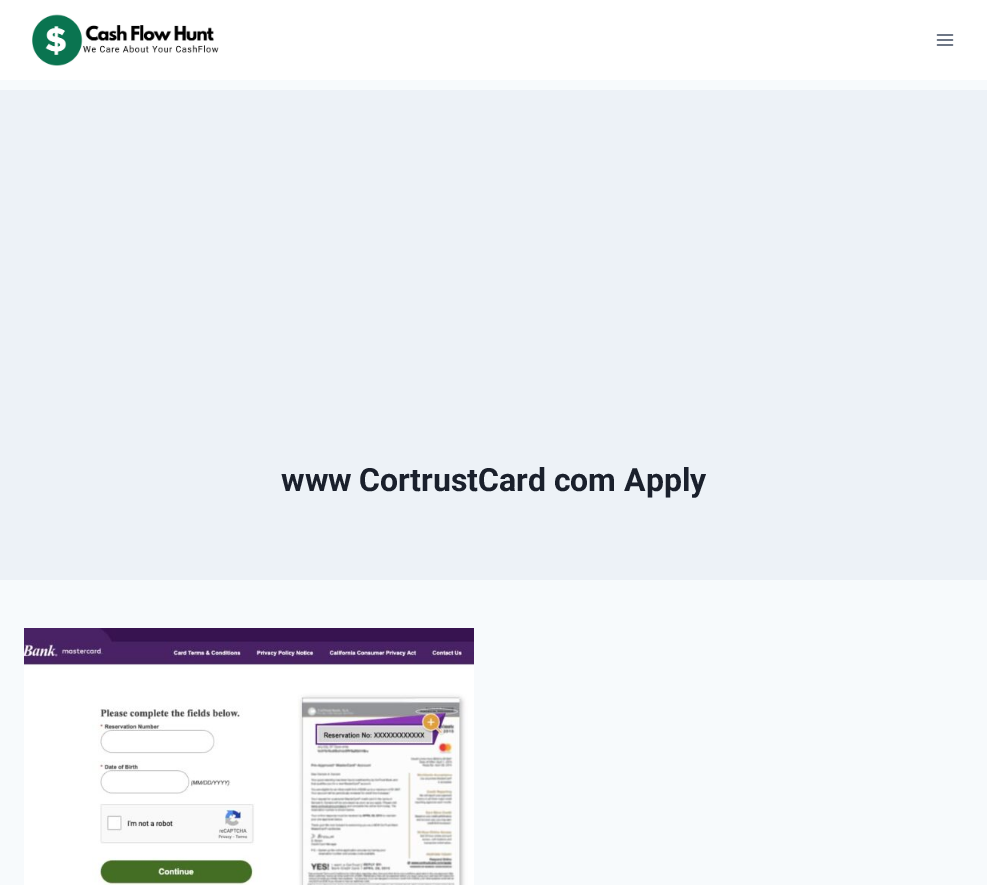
%!PS
<< /PageSize [987 885] >> setpagedevice
/co { dup -16 bitshift 255 div exch dup -8 bitshift 255 and 255 div exch 255 and 255 div setrgbcolor } def
/fn { [ exch dup neg 0 0 3 -1 roll 0 0 ] selectfont } def
/tx { co fn moveto show } def
/bx { co rectfill } def
/im { 5 dict begin { /h /w /y /x /name } { exch def } forall
  gsave x y translate w h scale
  w h 8 [w 0 0 h 0 0] name (r) file false 3 colorimage grestore end } def
0 885 translate 1 -1 scale
4 setmiterlimit
0 0 987 885 16#F7FAFC bx
0 0 987 80 16#FFFFFF bx
(media/1.raw) 32 14 187 52 im
(media/2.raw) 936 34 18 12 im
0 90 987 490 16#EDF2F7 bx
(media/3.raw) 24 628 450 257 im
(www CortrustCard com Apply) 281 491 /Roboto-Bold 32 16#1A202C tx
showpage
